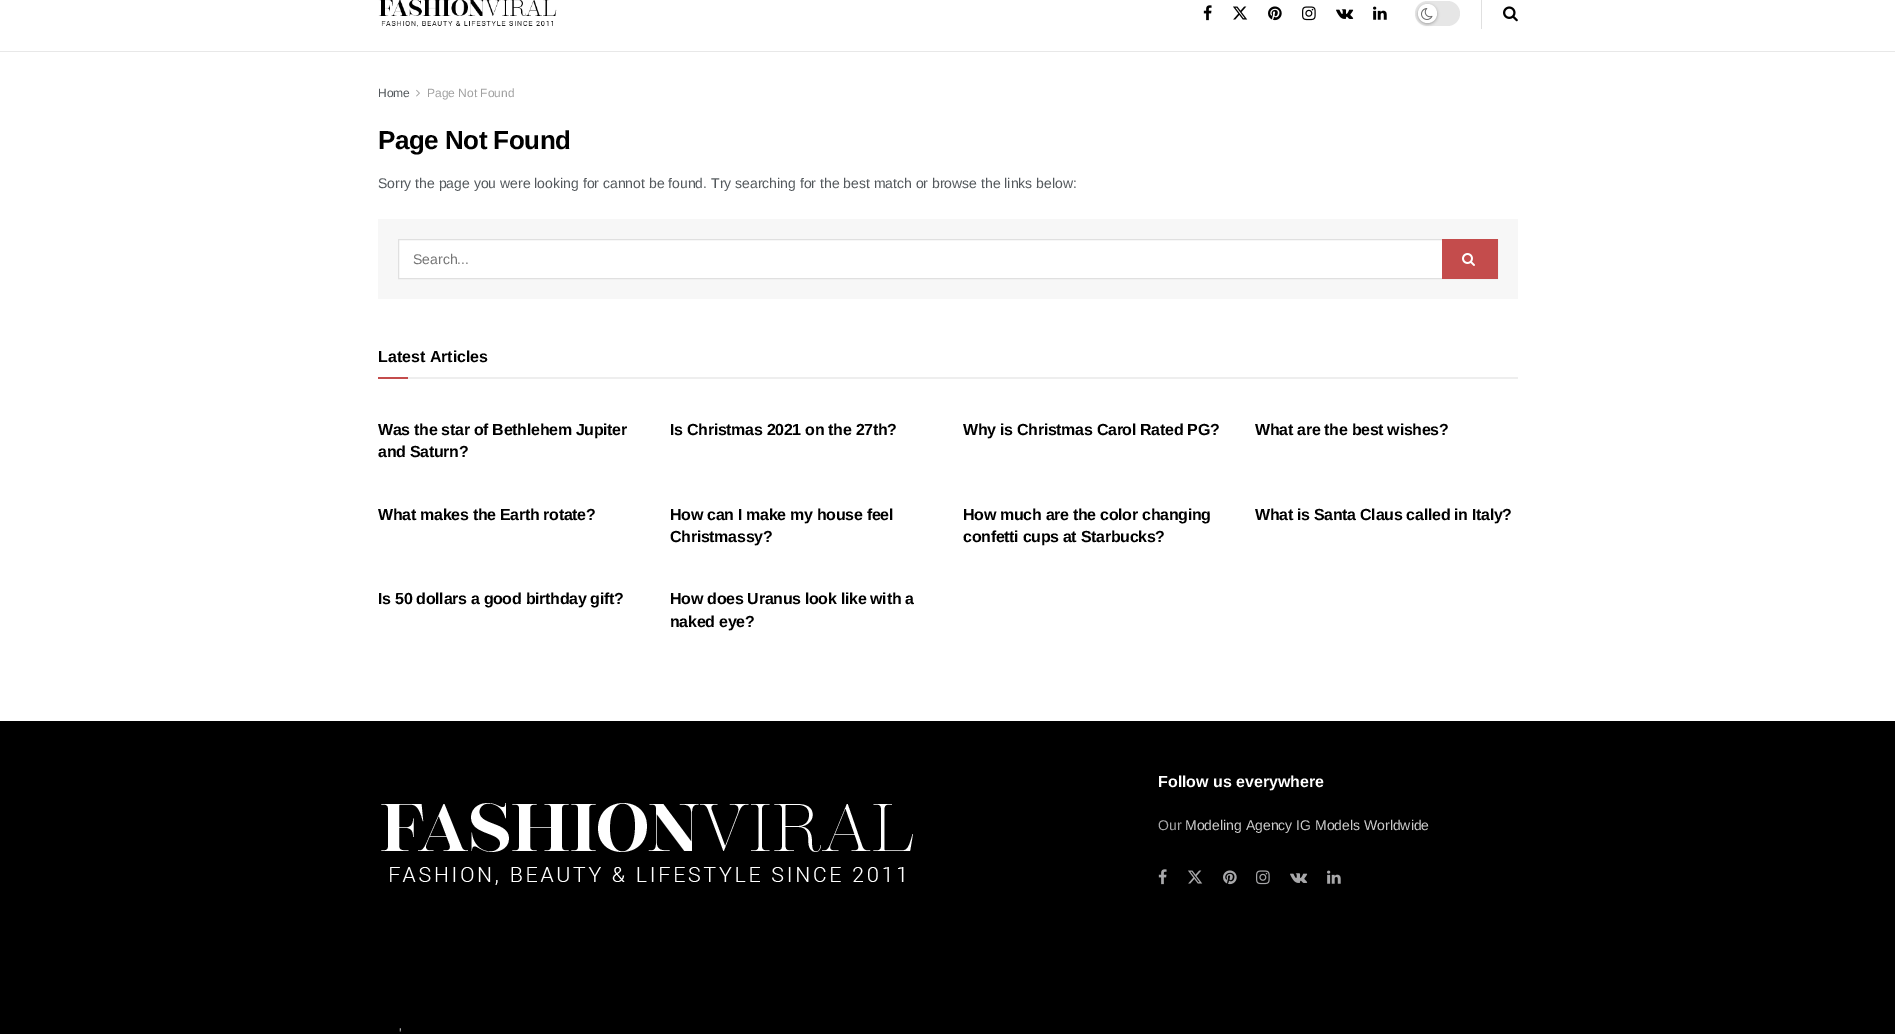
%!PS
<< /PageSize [1895 1034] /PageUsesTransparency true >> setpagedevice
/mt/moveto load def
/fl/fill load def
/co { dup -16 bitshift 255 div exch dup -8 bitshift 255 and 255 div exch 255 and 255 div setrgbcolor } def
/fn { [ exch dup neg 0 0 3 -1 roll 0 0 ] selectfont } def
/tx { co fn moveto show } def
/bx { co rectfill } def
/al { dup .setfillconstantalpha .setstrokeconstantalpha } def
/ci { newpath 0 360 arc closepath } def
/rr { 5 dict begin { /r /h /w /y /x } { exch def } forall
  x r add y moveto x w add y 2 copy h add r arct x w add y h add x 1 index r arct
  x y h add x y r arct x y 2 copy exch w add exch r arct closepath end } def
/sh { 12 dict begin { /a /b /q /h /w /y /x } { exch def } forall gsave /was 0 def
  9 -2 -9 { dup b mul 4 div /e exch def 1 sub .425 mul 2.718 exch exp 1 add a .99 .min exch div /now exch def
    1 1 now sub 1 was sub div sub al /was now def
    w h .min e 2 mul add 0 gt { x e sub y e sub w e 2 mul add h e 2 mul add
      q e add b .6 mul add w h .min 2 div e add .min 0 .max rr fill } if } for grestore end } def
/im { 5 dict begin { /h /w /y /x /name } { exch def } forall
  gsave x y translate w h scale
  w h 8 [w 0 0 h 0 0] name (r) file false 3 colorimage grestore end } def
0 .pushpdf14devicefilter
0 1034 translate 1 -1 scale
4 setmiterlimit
0 0 1895 1034 16#FFFFFF bx
0 51 1895 1 16#E8E8E8 bx
(media/1.raw) 378 0 179 27 im
(media/2.raw) 1203 5 9 16 im
(media/3.raw) 1233 6 15 14 im
(media/4.raw) 1268 6 14 15 im
(media/5.raw) 1302 6 14 15 im
(media/6.raw) 1336 9 18 10 im
(media/7.raw) 1373 6 14 14 im
16#E6E6E6 co
1415 1 45 25 12.5 rr fl
16#000000 co
1418 5 19 19 9.5 1.5 .3 sh
16#FFFFFF co
1427.5 13.5 9.5 ci fl
(media/8.raw) 1421 8 12 12 im
1481 0 1 29 16#E0E0E0 bx
(media/9.raw) 1503 6 15 16 im
(media/10.raw) 416 89 4 8 im
378 219 1140 80 16#F7F7F7 bx
399 240 1043 38 16#FFFFFF bx
16#E0E0E0 co
398.5 239.5 1099 39 rectstroke
1442 239 56 40 16#C44C4C bx
(media/11.raw) 1462 253 13 13 im
408 377 1110 2 16#EEEEEE bx
378 377 30 2 16#C44C4C bx
0 721 1895 313 16#000000 bx
(media/12.raw) 1158 869 9 16 im
(media/13.raw) 1188 870 15 14 im
(media/14.raw) 1223 870 14 15 im
(media/15.raw) 1256 870 14 15 im
(media/16.raw) 1290 873 18 10 im
(media/17.raw) 1327 870 14 14 im
(media/18.raw) 381 803 532 82 im
(Home) 378 97 /LiberationSans-Regular 12 16#53585C tx
(Page Not Found) 427 97 /LiberationSans-Regular 12 16#A0A0A0 tx
/LiberationSans-Bold 26 fn
16#000000 co
378 149 mt -.5 0 (Page Not Found) ashow
(Sorry the page you were looking for cannot be found. Try searching for the best match or browse the links below:) 378 188 /LiberationSans-Regular 14 16#53585C tx
(Search...) 413 264 /LiberationSans-Regular 14 16#757575 tx
(Latest Articles) 378 362 /LiberationSans-Bold 16 16#000000 tx
378 435 mt -.3 0 (Was the star of Bethlehem Jupiter) ashow
378 457 mt -.3 0 (and Saturn?) ashow
670 435 mt -.3 0 (Is Christmas 2021 on the 27th?) ashow
963 435 mt -.3 0 (Why is Christmas Carol Rated PG?) ashow
1255 435 mt -.3 0 (What are the best wishes?) ashow
378 520 mt -.3 0 (What makes the Earth rotate?) ashow
670 520 mt -.3 0 (How can I make my house feel) ashow
670 542 mt -.3 0 (Christmassy?) ashow
963 520 mt -.3 0 (How much are the color changing) ashow
963 542 mt -.3 0 (confetti cups at Starbucks?) ashow
1255 520 mt -.3 0 (What is Santa Claus called in Italy?) ashow
378 604 mt -.3 0 (Is 50 dollars a good birthday gift?) ashow
670 604 mt -.3 0 (How does Uranus look like with a) ashow
670 627 mt -.3 0 (naked eye?) ashow
(Follow us everywhere) 1158 787 /LiberationSans-Bold 16 16#FFFFFF tx
(Our) 1158 830 /LiberationSans-Regular 14 16#A8A8AA tx
(Modeling Agency IG Models Worldwide) 1185 830 /LiberationSans-Regular 14 16#CCCCCC tx
(') 399 1038 /LiberationSans-Regular 14 16#A8A8AA tx
.poppdf14devicefilter showpage
